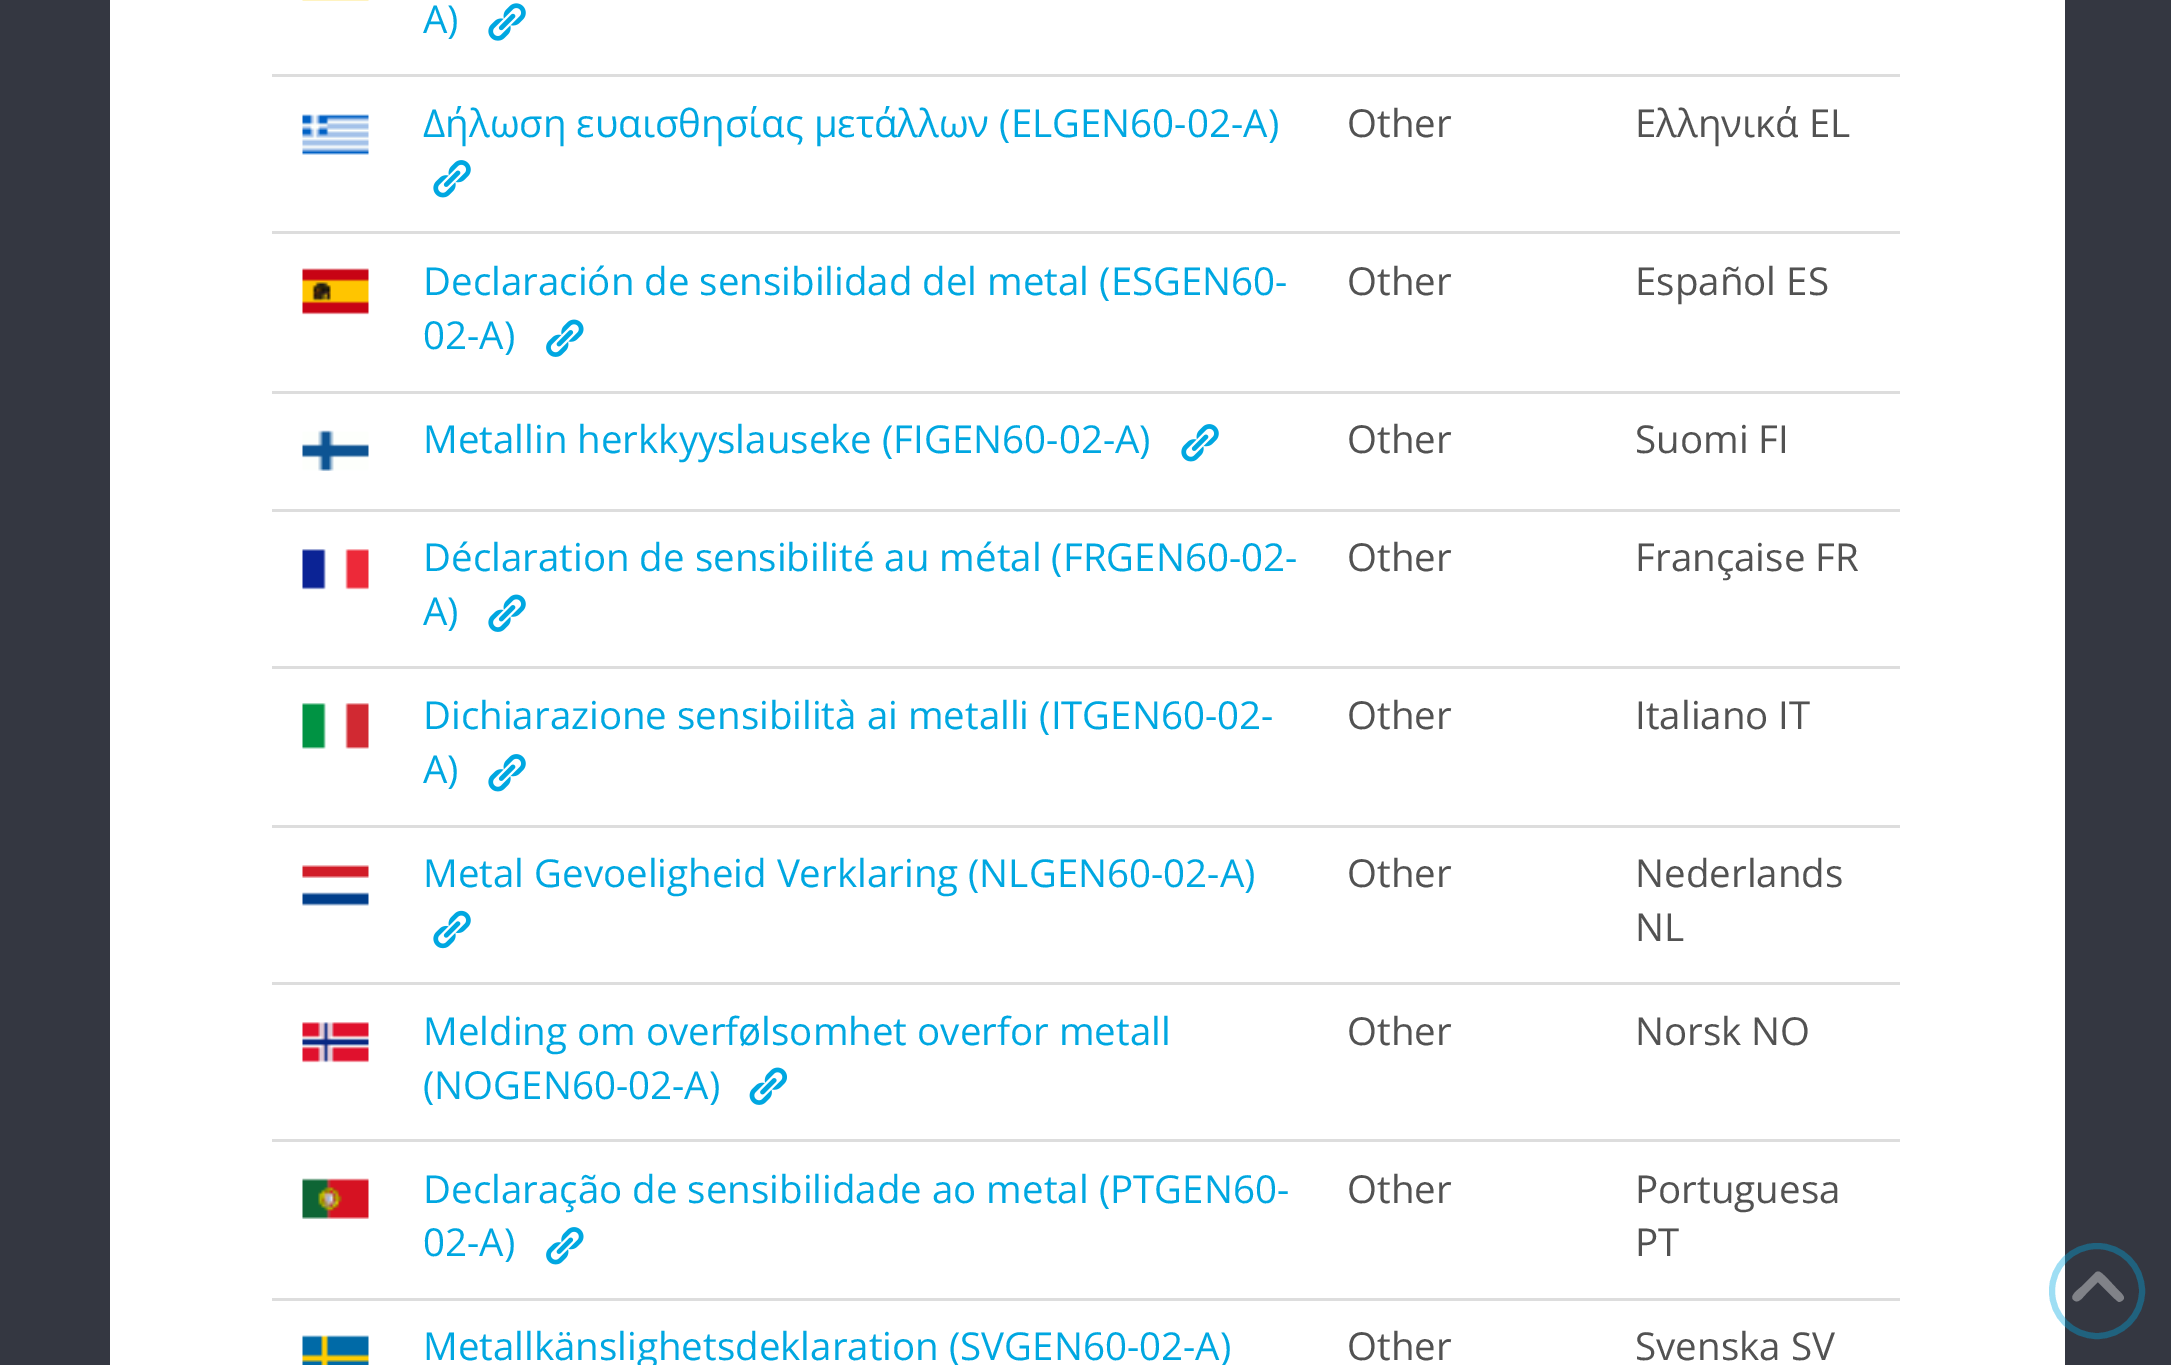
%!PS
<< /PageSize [2171 1365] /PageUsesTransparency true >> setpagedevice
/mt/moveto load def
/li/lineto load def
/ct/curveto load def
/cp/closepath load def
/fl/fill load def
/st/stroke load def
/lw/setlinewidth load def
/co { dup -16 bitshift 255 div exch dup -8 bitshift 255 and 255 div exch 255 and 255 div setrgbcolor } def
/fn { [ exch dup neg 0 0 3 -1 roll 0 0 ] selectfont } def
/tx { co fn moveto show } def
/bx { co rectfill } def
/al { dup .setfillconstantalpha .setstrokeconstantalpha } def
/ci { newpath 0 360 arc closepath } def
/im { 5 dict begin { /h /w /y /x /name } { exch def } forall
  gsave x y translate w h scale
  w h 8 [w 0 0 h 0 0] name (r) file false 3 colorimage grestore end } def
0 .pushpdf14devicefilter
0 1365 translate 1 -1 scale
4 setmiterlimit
0 0 2171 1365 16#343741 bx
110 0 1955 1365 16#FFFFFF bx
(media/1.raw) 302 0 67 1 im
(media/2.raw) 488 3 38 38 im
(media/3.raw) 302 114 67 41 im
(media/4.raw) 433 160 38 38 im
272 74 1628 3 16#DDDDDD bx
(media/5.raw) 302 268 67 47 im
(media/6.raw) 546 319 38 38 im
272 231 1628 3 16#DDDDDD bx
(media/7.raw) 302 430 67 41 im
(media/4.raw) 1181 424 38 38 im
272 391 1628 3 16#DDDDDD bx
(media/8.raw) 302 549 67 41 im
(media/9.raw) 488 594 38 38 im
272 509 1628 3 16#DDDDDD bx
(media/10.raw) 302 703 67 46 im
(media/4.raw) 488 754 38 38 im
272 666 1628 3 16#DDDDDD bx
(media/11.raw) 302 865 67 41 im
(media/12.raw) 433 910 38 39 im
272 825 1628 3 16#DDDDDD bx
(media/13.raw) 302 1022 67 41 im
(media/14.raw) 749 1067 38 38 im
272 982 1628 3 16#DDDDDD bx
(media/15.raw) 302 1178 67 41 im
(media/16.raw) 546 1227 38 38 im
272 1139 1628 3 16#DDDDDD bx
(media/17.raw) 302 1335 67 30 im
272 1298 1628 3 16#DDDDDD bx
0.38 al
16#00A7E1 co
6 lw
2097 1291 45 ci st
1 al
16#808288 co
2095 1273 mt 2099 1269 2102 1274 2105 1276 ct 2119 1291 li 2121 1293 2126 1297 2123 1300 ct 2122 1301 2120 1302 2119 1302 ct 2116 1301 2101 1285 2098 1282 ct 2086 1294 li 2083 1297 2079 1303 2075 1301 ct 2067 1297 2079 1289 2081 1287 ct cp fl
(A\)) 423 33 /OpenSans-Regular 38.5 16#00A7E1 tx
(Δήλωση ευαισθησίας μετάλλων \(ELGEN60-02-A\)) 423 137 /OpenSans-Regular 38.5 16#00A7E1 tx
(Other) 1347 137 /OpenSans-Regular 38.5 16#525252 tx
(Ελληνικά EL) 1635 137 /OpenSans-Regular 38.5 16#525252 tx
(Declaración de sensibilidad del metal \(ESGEN60-) 423 295 /OpenSans-Regular 38.5 16#00A7E1 tx
(02-A\)) 423 349 /OpenSans-Regular 38.5 16#00A7E1 tx
(Other) 1347 295 /OpenSans-Regular 38.5 16#525252 tx
(Español ES) 1635 295 /OpenSans-Regular 38.5 16#525252 tx
(Metallin herkkyyslauseke \(FIGEN60-02-A\)) 423 453 /OpenSans-Regular 38.5 16#00A7E1 tx
(Other) 1347 453 /OpenSans-Regular 38.5 16#525252 tx
(Suomi FI) 1635 453 /OpenSans-Regular 38.5 16#525252 tx
(Déclaration de sensibilité au métal \(FRGEN60-02-) 423 571 /OpenSans-Regular 38.5 16#00A7E1 tx
(A\)) 423 625 /OpenSans-Regular 38.5 16#00A7E1 tx
(Other) 1347 571 /OpenSans-Regular 38.5 16#525252 tx
(Française FR) 1635 571 /OpenSans-Regular 38.5 16#525252 tx
(Dichiarazione sensibilità ai metalli \(ITGEN60-02-) 423 729 /OpenSans-Regular 38.5 16#00A7E1 tx
(A\)) 423 783 /OpenSans-Regular 38.5 16#00A7E1 tx
(Other) 1347 729 /OpenSans-Regular 38.5 16#525252 tx
(Italiano IT) 1635 729 /OpenSans-Regular 38.5 16#525252 tx
(Metal Gevoeligheid Verklaring \(NLGEN60-02-A\)) 423 887 /OpenSans-Regular 38.5 16#00A7E1 tx
(Other) 1347 887 /OpenSans-Regular 38.5 16#525252 tx
(Nederlands) 1635 887 /OpenSans-Regular 38.5 16#525252 tx
(NL) 1635 941 /OpenSans-Regular 38.5 16#525252 tx
(Melding om overfølsomhet overfor metall) 423 1045 /OpenSans-Regular 38.5 16#00A7E1 tx
(\(NOGEN60-02-A\)) 423 1099 /OpenSans-Regular 38.5 16#00A7E1 tx
(Other) 1347 1045 /OpenSans-Regular 38.5 16#525252 tx
(Norsk NO) 1635 1045 /OpenSans-Regular 38.5 16#525252 tx
(Declaração de sensibilidade ao metal \(PTGEN60-) 423 1203 /OpenSans-Regular 38.5 16#00A7E1 tx
(02-A\)) 423 1256 /OpenSans-Regular 38.5 16#00A7E1 tx
(Other) 1347 1203 /OpenSans-Regular 38.5 16#525252 tx
(Portuguesa) 1635 1203 /OpenSans-Regular 38.5 16#525252 tx
(PT) 1635 1256 /OpenSans-Regular 38.5 16#525252 tx
(Metallkänslighetsdeklaration \(SVGEN60-02-A\)) 423 1360 /OpenSans-Regular 38.5 16#00A7E1 tx
(Other) 1347 1360 /OpenSans-Regular 38.5 16#525252 tx
(Svenska SV) 1635 1360 /OpenSans-Regular 38.5 16#525252 tx
.poppdf14devicefilter showpage
